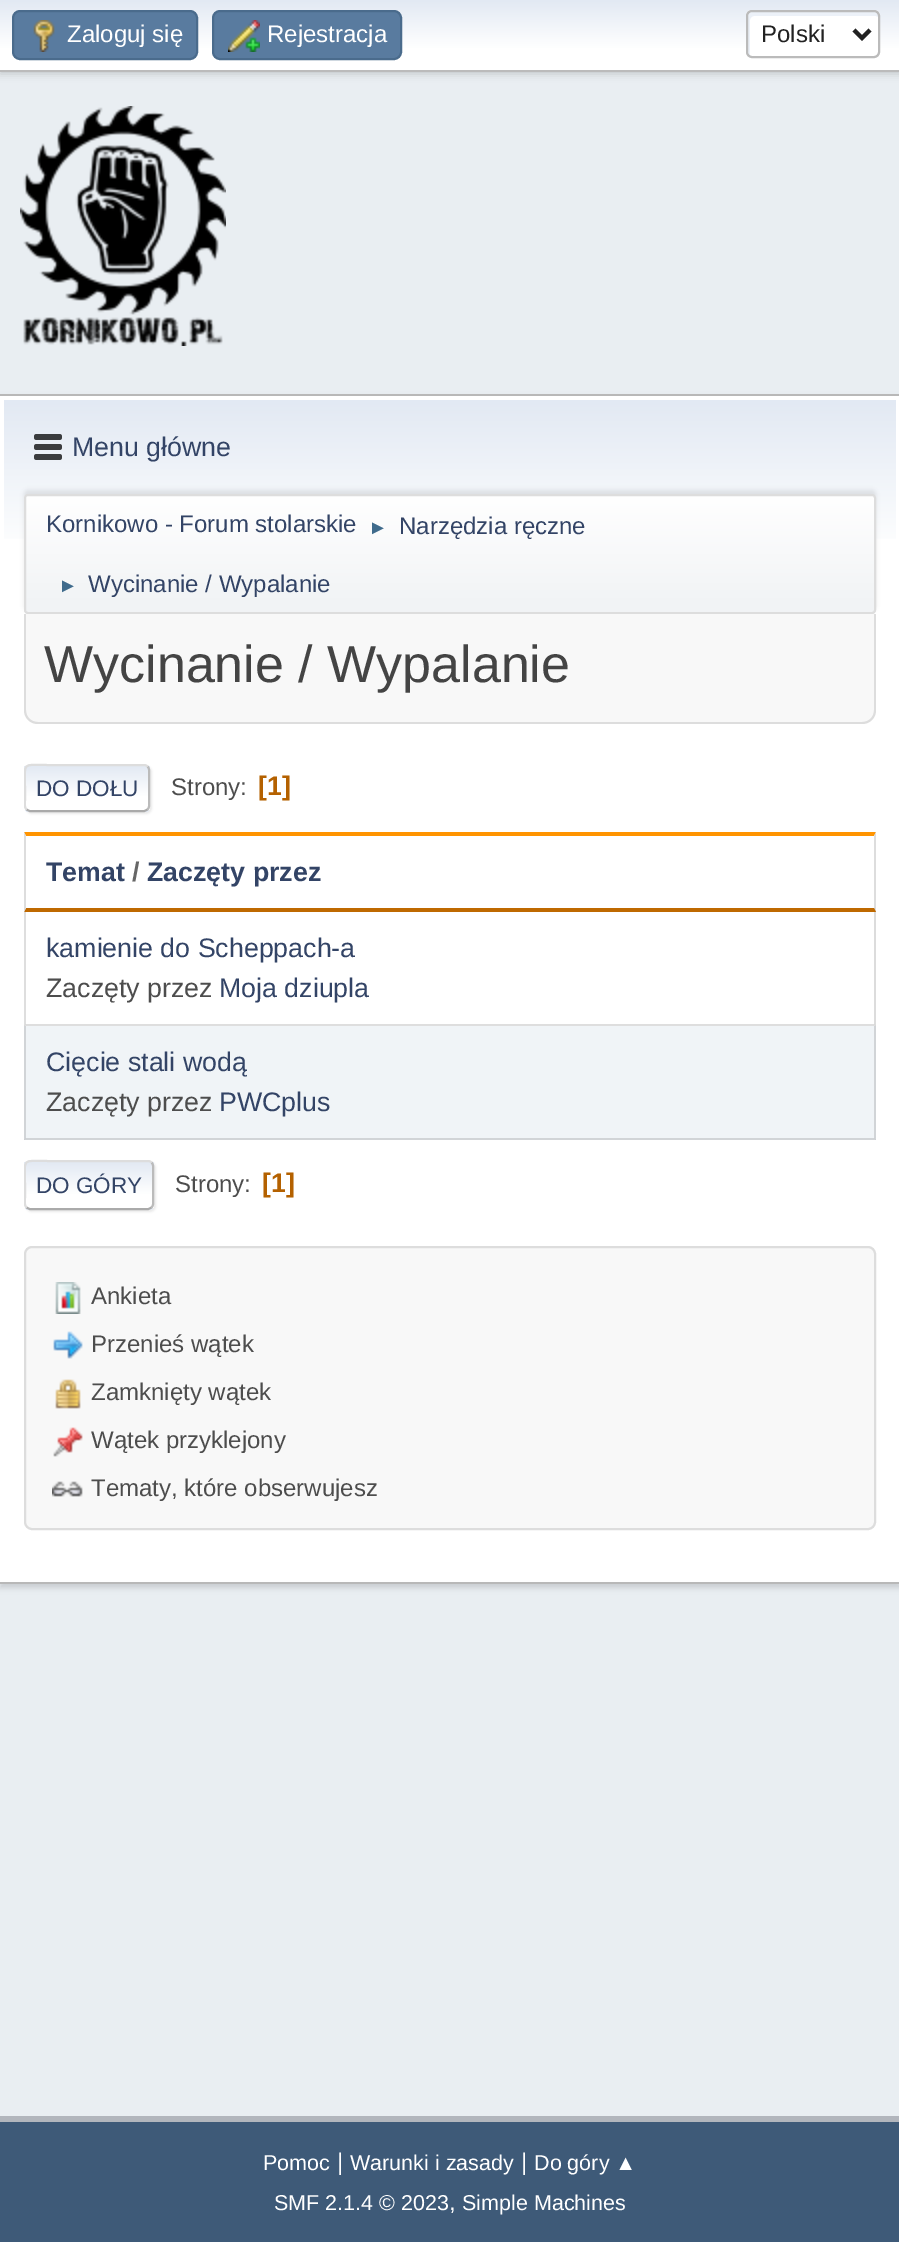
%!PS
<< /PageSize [899 2242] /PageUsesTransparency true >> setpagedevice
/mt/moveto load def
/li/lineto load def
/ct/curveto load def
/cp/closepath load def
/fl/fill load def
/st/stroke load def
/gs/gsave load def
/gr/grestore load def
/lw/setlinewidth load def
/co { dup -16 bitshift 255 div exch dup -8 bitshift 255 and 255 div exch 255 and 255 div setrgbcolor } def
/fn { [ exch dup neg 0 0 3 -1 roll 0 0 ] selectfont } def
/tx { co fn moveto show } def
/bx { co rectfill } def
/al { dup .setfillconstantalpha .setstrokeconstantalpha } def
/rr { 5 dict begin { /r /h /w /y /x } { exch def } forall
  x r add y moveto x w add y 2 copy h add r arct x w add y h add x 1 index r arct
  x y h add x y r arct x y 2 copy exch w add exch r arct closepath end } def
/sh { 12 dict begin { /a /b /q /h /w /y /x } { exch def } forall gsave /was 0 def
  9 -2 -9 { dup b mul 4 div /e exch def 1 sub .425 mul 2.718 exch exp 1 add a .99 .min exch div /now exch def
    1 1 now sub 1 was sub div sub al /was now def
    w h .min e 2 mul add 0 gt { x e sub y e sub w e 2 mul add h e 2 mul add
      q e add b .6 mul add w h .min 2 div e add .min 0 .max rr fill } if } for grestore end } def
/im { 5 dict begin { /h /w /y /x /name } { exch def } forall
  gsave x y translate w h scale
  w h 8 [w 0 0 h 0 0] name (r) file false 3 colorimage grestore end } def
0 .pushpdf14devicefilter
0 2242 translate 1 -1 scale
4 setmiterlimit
0 0 899 2242 16#E9EEF2 bx
16#000000 co
0 2 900 72 0 4 .16 sh
gs 0 0 mt 899 0 li 899 70 li 0 70 li cp clip newpath
<< /ShadingType 2 /ColorSpace /DeviceRGB /Coords [450 0 450 70] /Extend [true true] /Function << /FunctionType 3 /Domain [0 1] /Functions [<< /FunctionType 2 /Domain [0 1] /C0 [.886 .914 .953] /C1 [1 1 1] /N 1 >> << /FunctionType 2 /Domain [0 1] /C0 [1 1 1] /C1 [1 1 1] /N 1 >>] /Bounds [.7] /Encode [0 1 0 1] >> >> shfill gr
0 70 899 2 16#BBBBBB bx
16#597B9F co
13 11 184 48 7 rr gs fl gr
16#4A6B8C co
2 lw
st
(media/1.raw) 33 20 22 32 im
16#597B9F co
213 11 188 48 7 rr gs fl gr
16#4A6B8C co
st
(media/2.raw) 228 20 32 32 im
16#FFFFFF co
746 10 134 48 6 rr fl
16#ECF1F8 co
754 16 mt 876 16 li 878 17 li 878 16 li 878 14 876 12 874 12 ct 752 12 li 750 12 748 14 748 16 ct 748 52 li 748 53 749 55 750 55 ct 750 20 li 750 18 752 16 754 16 ct cp fl
16#BBBBBB co
747 11 132 46 5 rr st
16#222222 co
4 lw
854 30 mt 862 38 li 870 30 li st
(media/3.raw) 20 106 206 240 im
16#000000 co
0 398 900 1190 0 3 .14 sh
0 396 899 1186 16#FFFFFF bx
0 394 899 2 16#B8B8B8 bx
0 1582 899 2 16#B8B8B8 bx
gs 4 400 mt 896 400 li 896 539 li 4 539 li cp clip newpath
<< /ShadingType 2 /ColorSpace /DeviceRGB /Coords [450 400 450 618] /Extend [true true] /Function << /FunctionType 3 /Domain [0 1] /Functions [<< /FunctionType 2 /Domain [0 1] /C0 [.886 .914 .953] /C1 [1 1 1] /N 1 >> << /FunctionType 2 /Domain [0 1] /C0 [1 1 1] /C1 [1 1 1] /N 1 >>] /Bounds [.7] /Encode [0 1 0 1] >> >> shfill gr
(media/4.raw) 34 434 28 26 im
16#000000 co
24 490 852 120 4 2 .08 sh
gs
24 494 852 120 4 rr clip newpath
gs 24 496 mt 876 496 li 876 612 li 24 612 li cp clip newpath
<< /ShadingType 2 /ColorSpace /DeviceRGB /Coords [450 496 450 612] /Extend [true true] /Function << /FunctionType 3 /Domain [0 1] /Functions [<< /FunctionType 2 /Domain [0 1] /C0 [1 1 1] /C1 [.945 .953 .961] /N 1 >> << /FunctionType 2 /Domain [0 1] /C0 [.945 .953 .961] /C1 [.945 .953 .961] /N 1 >>] /Bounds [.95] /Encode [0 1 0 1] >> >> shfill gr
gr
16#DDDDDD co
2 lw
25 495 850 118 3 rr st
16#F8F8F8 co
24 614 mt 876 614 li 876 710 li 876 717.5 869.5 724 862 724 ct 38 724 li 30.5 724 24 717.5 24 710 ct cp fl
16#DDDDDD co
24 614 mt 876 614 li 876 710 li 876 718 870 724 862 724 ct 38 724 li 30 724 24 718 24 710 ct cp 26 614 mt 874 614 li 874 710 li 874 717 869 722 862 722 ct 38 722 li 31 722 26 717 26 710 ct cp eofill
26 766 126 48 6 1 .57 sh
gs
24 764 126 48 6 rr clip newpath
gs 24 766 mt 150 766 li 150 810 li 24 810 li cp clip newpath
<< /ShadingType 2 /ColorSpace /DeviceRGB /Coords [87 766 87 810] /Extend [true true] /Function << /FunctionType 3 /Domain [0 1] /Functions [<< /FunctionType 2 /Domain [0 1] /C0 [.886 .914 .953] /C1 [1 1 1] /N 1 >> << /FunctionType 2 /Domain [0 1] /C0 [1 1 1] /C1 [1 1 1] /N 1 >>] /Bounds [.7] /Encode [0 1 0 1] >> >> shfill gr
gs 24 810 mt 150 810 li 150 812 li 24 812 li cp clip newpath
<< /ShadingType 2 /ColorSpace /DeviceRGB /Coords [87 810 87 854] /Extend [true true] /Function << /FunctionType 3 /Domain [0 1] /Functions [<< /FunctionType 2 /Domain [0 1] /C0 [.886 .914 .953] /C1 [1 1 1] /N 1 >> << /FunctionType 2 /Domain [0 1] /C0 [1 1 1] /C1 [1 1 1] /N 1 >>] /Bounds [.7] /Encode [0 1 0 1] >> >> shfill gr
gr
16#BBBBBB co
147.5 766.5 mt 148.5 767.5 149 768.5 149 770 ct 149 806 li 149 807.5 148.5 808.5 147.5 809.5 ct st
16#AAAAAA co
147.5 809.5 mt 144.5 811 li 29.5 811 li 26.5 809.5 li st
gs
24 754 852 68 rectclip
16#DDDDDD co
26.5 809.5 mt 24 807 25 802.5 25 800 ct 25 788 li 25 761 21 765 49 765 ct 144 765 li 145.5 765 146.5 765.5 147.5 766.5 ct st
gr
16#FF9400 co
24 832 mt 876 832 li 874 836 li 26 836 li cp fl
16#DDDDDD co
876 832 mt 876 912 li 874 908 li 874 836 li cp fl
16#BF6900 co
876 912 mt 24 912 li 26 908 li 874 908 li cp fl
16#DDDDDD co
24 912 mt 24 832 li 26 836 li 26 908 li cp fl
16#DCDCDC co
876 912 mt 876 1026 li 874 1024 li 874 912 li cp fl
0.13 al
16#000000 co
876 1026 mt 24 1026 li 26 1024 li 874 1024 li cp fl
24 1026 mt 24 912 li 26 912 li 26 1024 li cp fl
1 al
24 1026 852 114 16#F0F4F7 bx
16#D1D4D7 co
876 1026 mt 876 1140 li 874 1138 li 874 1026 li cp fl
0.13 al
16#000000 co
876 1140 mt 24 1140 li 26 1138 li 874 1138 li cp fl
24 1140 mt 24 1026 li 26 1026 li 26 1138 li cp fl
1 al
16#DDDDDD co
26 1162 130 50 6 1 .57 sh
gs
24 1160 130 50 6 rr clip newpath
gs 24 1162 mt 154 1162 li 154 1208 li 24 1208 li cp clip newpath
<< /ShadingType 2 /ColorSpace /DeviceRGB /Coords [89 1162 89 1208] /Extend [true true] /Function << /FunctionType 3 /Domain [0 1] /Functions [<< /FunctionType 2 /Domain [0 1] /C0 [.886 .914 .953] /C1 [1 1 1] /N 1 >> << /FunctionType 2 /Domain [0 1] /C0 [1 1 1] /C1 [1 1 1] /N 1 >>] /Bounds [.7] /Encode [0 1 0 1] >> >> shfill gr
gs 24 1208 mt 154 1208 li 154 1210 li 24 1210 li cp clip newpath
<< /ShadingType 2 /ColorSpace /DeviceRGB /Coords [89 1208 89 1254] /Extend [true true] /Function << /FunctionType 3 /Domain [0 1] /Functions [<< /FunctionType 2 /Domain [0 1] /C0 [.886 .914 .953] /C1 [1 1 1] /N 1 >> << /FunctionType 2 /Domain [0 1] /C0 [1 1 1] /C1 [1 1 1] /N 1 >>] /Bounds [.7] /Encode [0 1 0 1] >> >> shfill gr
gr
16#BBBBBB co
151.5 1162.5 mt 152.5 1163.5 153 1164.5 153 1166 ct 153 1204 li 153 1205.5 152.5 1206.5 151.5 1207.5 ct st
16#AAAAAA co
151.5 1207.5 mt 148.5 1209 li 29.5 1209 li 26.5 1207.5 li st
gs
24 1150 852 70 rectclip
16#DDDDDD co
26.5 1207.5 mt 24 1205 25 1200.5 25 1197.5 ct 25 1185 li 25 1157 20.5 1161 49.5 1161 ct 148 1161 li 149.5 1161 150.5 1161.5 151.5 1162.5 ct st
gr
16#F8F8F8 co
25 1247 850 282 7 rr gs fl gr
16#DDDDDD co
st
(media/5.raw) 55 1282 26 32 im
(media/6.raw) 53 1331 30 28 im
(media/7.raw) 55 1379 26 30 im
(media/8.raw) 53 1427 30 30 im
(media/9.raw) 52 1481 31 16 im
0 2122 899 120 16#3E5A78 bx
0 2116 899 6 16#B2B6BD bx
(Zaloguj się) 67 42 /LiberationSans-Regular 24 16#FFFFFF tx
(Rejestracja) 267 42 /LiberationSans-Regular 24 16#FFFFFF tx
(Polski) 761 42 /LiberationSans-Regular 24 16#222222 tx
(Menu główne) 72 456 /LiberationSans-Regular 26.75 16#334466 tx
(Kornikowo - Forum stolarskie) 46 532 /LiberationSans-Regular 24 16#334466 tx
(►) 368 534 /LiberationSans-Regular 20 16#3F6B8C tx
(Narzędzia ręczne) 399 534 /LiberationSans-Regular 24 16#334466 tx
(►) 58 592 /LiberationSans-Regular 20 16#3F6B8C tx
(Wycinanie / Wypalanie) 88 592 /LiberationSans-Regular 24 16#334466 tx
(Wycinanie / Wypalanie) 44 682 /LiberationSans-Regular 52 16#444444 tx
(DO DOŁU) 36 796 /LiberationSans-Regular 22.5 16#334466 tx
(Strony:) 171 795 /LiberationSans-Regular 24 16#4D4D4D tx
([1]) 258 795 /LiberationSans-Bold 26.75 16#B46100 tx
(Temat) 46 881 /LiberationSans-Bold 26.75 16#334466 tx
(/) 132 881 /LiberationSans-Bold 26.75 16#666666 tx
(Zaczęty przez) 147 881 /LiberationSans-Bold 26.75 16#334466 tx
(kamienie do Scheppach-a) 46 957 /LiberationSans-Regular 26.75 16#334466 tx
(Zaczęty przez) 46 997 /LiberationSans-Regular 26.75 16#4D4D4D tx
(Moja dziupla) 219 997 /LiberationSans-Regular 26.75 16#334466 tx
(Cięcie stali wodą) 46 1071 /LiberationSans-Regular 26.75 16#334466 tx
(Zaczęty przez) 46 1111 /LiberationSans-Regular 26.75 16#4D4D4D tx
(PWCplus) 219 1111 /LiberationSans-Regular 26.75 16#334466 tx
(DO GÓRY) 36 1193 /LiberationSans-Regular 22.5 16#334466 tx
(Strony:) 175 1192 /LiberationSans-Regular 24 16#4D4D4D tx
([1]) 262 1192 /LiberationSans-Bold 26.75 16#B46100 tx
(Ankieta) 91 1304 /LiberationSans-Regular 24 16#4D4D4D tx
(Przenieś wątek) 91 1352 /LiberationSans-Regular 24 16#4D4D4D tx
(Zamknięty wątek) 91 1400 /LiberationSans-Regular 24 16#4D4D4D tx
(Wątek przyklejony) 91 1448 /LiberationSans-Regular 24 16#4D4D4D tx
(Tematy, które obserwujesz) 91 1496 /LiberationSans-Regular 24 16#4D4D4D tx
(Pomoc) 263 2170 /LiberationSans-Regular 21.5 16#FFFFFF tx
(|) 337 2170 /LiberationSans-Regular 24 16#FFFFFF tx
(Warunki i zasady) 350 2170 /LiberationSans-Regular 21.5 16#FFFFFF tx
(|) 521 2170 /LiberationSans-Regular 24 16#FFFFFF tx
(Do góry ▲) 534 2170 /LiberationSans-Regular 21.5 16#FFFFFF tx
(SMF 2.1.4 © 2023) 274 2210 /LiberationSans-Regular 21.5 16#FFFFFF tx
(,) 449 2210 /LiberationSans-Regular 24 16#FFFFFF tx
(Simple Machines) 462 2210 /LiberationSans-Regular 21.5 16#FFFFFF tx
.poppdf14devicefilter showpage
